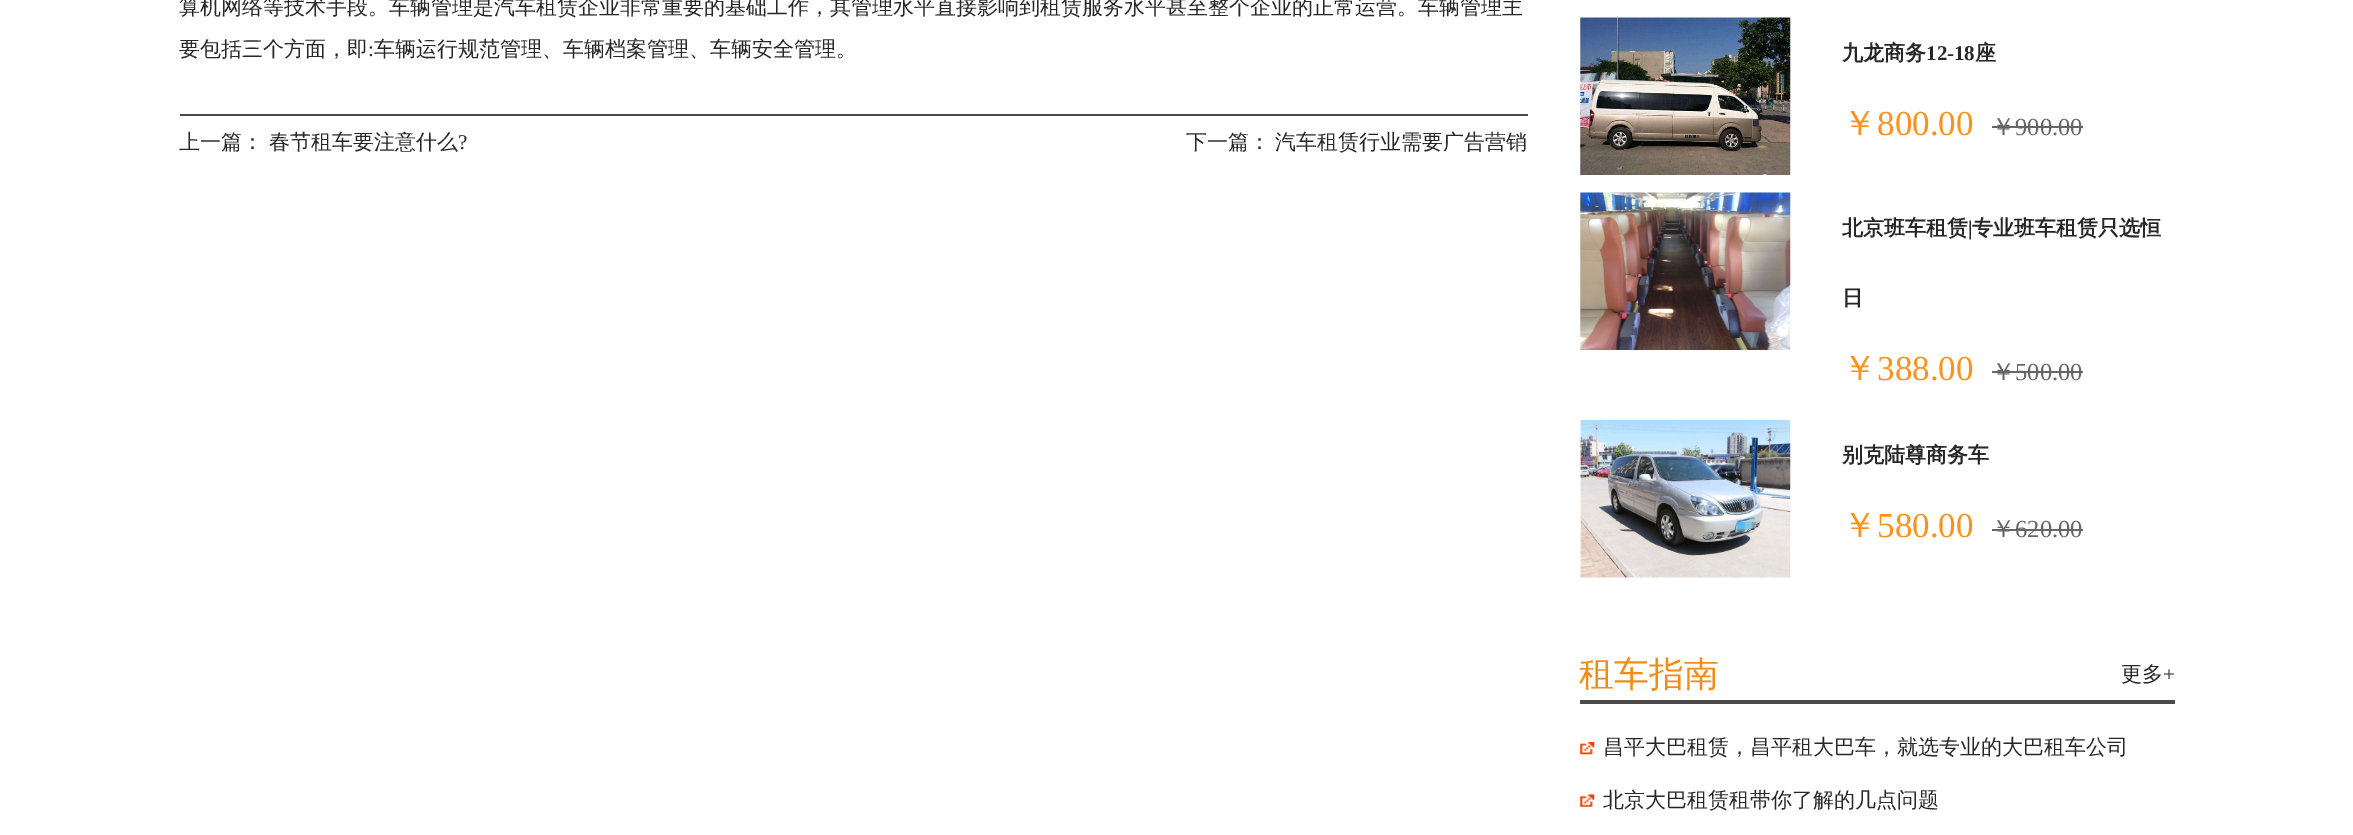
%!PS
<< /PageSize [2353 835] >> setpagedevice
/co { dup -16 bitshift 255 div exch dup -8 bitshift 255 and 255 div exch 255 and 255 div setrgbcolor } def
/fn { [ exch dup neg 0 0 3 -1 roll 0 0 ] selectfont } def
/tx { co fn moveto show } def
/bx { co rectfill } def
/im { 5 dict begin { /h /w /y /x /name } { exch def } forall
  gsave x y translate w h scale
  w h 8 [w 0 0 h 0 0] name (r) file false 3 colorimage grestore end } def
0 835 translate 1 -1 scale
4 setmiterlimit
0 0 2353 835 16#FFFFFF bx
180 114 1348 2 16#4A4B48 bx
(media/1.raw) 1580 17 211 158 im
1992 126 91 2 16#666666 bx
(media/2.raw) 1580 192 211 158 im
1992 371 91 2 16#666666 bx
(media/3.raw) 1580 420 211 158 im
1992 529 91 2 16#666666 bx
1580 700 595 4 16#4B4A48 bx
(media/4.raw) 1580 742 15 13 im
(media/5.raw) 1580 794 15 13 im
(算机网络等技术手段。车辆管理是汽车租赁企业非常重要的基础工作，其管理水平直接影响到租赁服务水平甚至整个企业的正常运营。车辆管理主) 179 14 /WenQuanYiZenHei-Medium 21 16#272727 tx
(要包括三个方面，即) 179 56 /WenQuanYiZenHei-Medium 21 16#272727 tx
(:) 368 56 /LiberationSerif-Regular 21 16#272727 tx
(车辆运行规范管理、车辆档案管理、车辆安全管理。) 374 56 /WenQuanYiZenHei-Medium 21 16#272727 tx
(上一篇：) 179 149 /WenQuanYiZenHei-Medium 21 16#272727 tx
(春节租车要注意什么) 269 149 /WenQuanYiZenHei-Medium 21 16#272727 tx
(?) 458 149 /LiberationSerif-Regular 21 16#272727 tx
(下一篇：) 1186 149 /WenQuanYiZenHei-Medium 21 16#272727 tx
(汽车租赁行业需要广告营销) 1275 149 /WenQuanYiZenHei-Medium 21 16#272727 tx
(九龙商务) 1842 60 /WenQuanYiZenHei-Bold 21 16#272727 tx
(12-18) 1926 60 /LiberationSerif-Bold 21 16#272727 tx
(座) 1975 60 /WenQuanYiZenHei-Bold 21 16#272727 tx
(￥) 1842 135 /WenQuanYiZenHei-Medium 35 16#F8931F tx
(800.00) 1877 135 /LiberationSerif-Regular 35 16#F8931F tx
(￥) 1991 135 /WenQuanYiZenHei-Medium 24.5 16#666666 tx
(900.00) 2015 135 /LiberationSerif-Regular 24.5 16#666666 tx
(北京班车租赁) 1842 235 /WenQuanYiZenHei-Bold 21 16#272727 tx
(|) 1968 235 /LiberationSerif-Bold 21 16#272727 tx
(专业班车租赁只选恒) 1972 235 /WenQuanYiZenHei-Bold 21 16#272727 tx
(日) 1842 305 /WenQuanYiZenHei-Bold 21 16#272727 tx
(￥) 1842 380 /WenQuanYiZenHei-Medium 35 16#F8931F tx
(388.00) 1877 380 /LiberationSerif-Regular 35 16#F8931F tx
(￥) 1991 380 /WenQuanYiZenHei-Medium 24.5 16#666666 tx
(500.00) 2015 380 /LiberationSerif-Regular 24.5 16#666666 tx
(别克陆尊商务车) 1842 462 /WenQuanYiZenHei-Bold 21 16#272727 tx
(￥) 1842 537 /WenQuanYiZenHei-Medium 35 16#F8931F tx
(580.00) 1877 537 /LiberationSerif-Regular 35 16#F8931F tx
(￥) 1991 537 /WenQuanYiZenHei-Medium 24.5 16#666666 tx
(620.00) 2015 537 /LiberationSerif-Regular 24.5 16#666666 tx
(租车指南) 1579 686 /WenQuanYiZenHei-Medium 35 16#F08D18 tx
(更多) 2121 681 /WenQuanYiZenHei-Medium 21 16#272727 tx
(+) 2163 681 /LiberationSerif-Regular 21 16#272727 tx
(昌平大巴租赁，昌平租大巴车，就选专业的大巴租车公司) 1603 754 /WenQuanYiZenHei-Medium 21 16#272727 tx
(北京大巴租赁租带你了解的几点问题) 1603 807 /WenQuanYiZenHei-Medium 21 16#272727 tx
showpage
